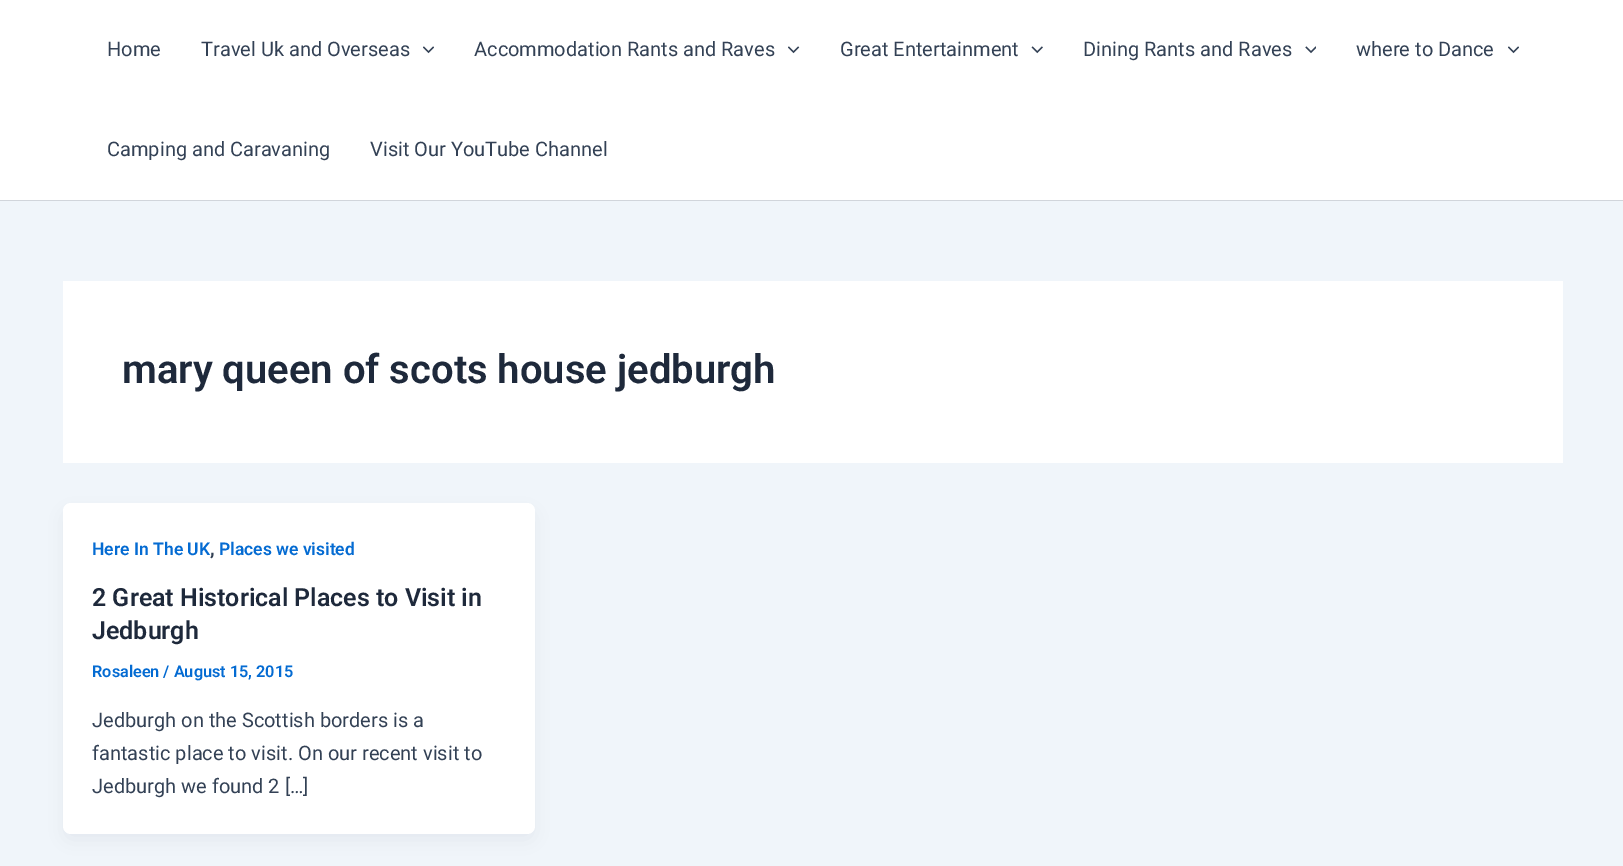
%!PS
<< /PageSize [1623 866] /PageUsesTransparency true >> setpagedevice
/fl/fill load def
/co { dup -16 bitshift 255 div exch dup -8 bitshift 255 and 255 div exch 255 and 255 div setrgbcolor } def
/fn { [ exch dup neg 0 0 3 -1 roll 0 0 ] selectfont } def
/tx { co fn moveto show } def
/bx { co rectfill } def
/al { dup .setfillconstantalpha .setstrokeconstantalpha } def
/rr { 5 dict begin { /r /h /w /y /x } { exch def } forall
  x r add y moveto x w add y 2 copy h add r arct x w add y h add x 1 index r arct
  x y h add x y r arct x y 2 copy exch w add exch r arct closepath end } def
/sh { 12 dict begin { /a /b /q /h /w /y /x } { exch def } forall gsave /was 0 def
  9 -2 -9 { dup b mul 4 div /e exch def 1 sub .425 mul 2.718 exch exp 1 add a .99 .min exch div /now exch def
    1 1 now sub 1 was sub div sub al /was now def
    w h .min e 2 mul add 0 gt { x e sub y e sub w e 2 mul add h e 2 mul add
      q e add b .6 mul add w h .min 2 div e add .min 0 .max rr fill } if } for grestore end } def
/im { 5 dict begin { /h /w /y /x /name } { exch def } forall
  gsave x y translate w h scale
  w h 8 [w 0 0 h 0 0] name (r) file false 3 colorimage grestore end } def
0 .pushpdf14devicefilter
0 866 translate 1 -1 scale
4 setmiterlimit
0 0 1623 866 16#F0F5FA bx
0 0 1623 200 16#FFFFFF bx
0 200 1623 1 16#D1D5DB bx
(media/1.raw) 423 46 11 8 im
(media/2.raw) 788 46 12 8 im
(media/3.raw) 1031 46 12 8 im
(media/4.raw) 1305 46 11 8 im
(media/1.raw) 1508 46 11 8 im
63 281 1500 182 16#FFFFFF bx
16#101828 co
65 513 468 326 5 9.5 .05 sh
16#FFFFFF co
63 503 472 331 8 rr fl
(Home) 107 56 /Roboto-Regular 20 16#334155 tx
(Travel Uk and Overseas) 201 56 /Roboto-Regular 20 16#334155 tx
(Accommodation Rants and Raves) 474 56 /Roboto-Regular 20 16#334155 tx
(Great Entertainment) 840 56 /Roboto-Regular 20 16#334155 tx
(Dining Rants and Raves) 1083 56 /Roboto-Regular 20 16#334155 tx
(where to Dance) 1356 56 /Roboto-Regular 20 16#334155 tx
(Camping and Caravaning) 107 156 /Roboto-Regular 20 16#334155 tx
(Visit Our YouTube Channel) 370 156 /Roboto-Regular 20 16#334155 tx
(mary queen of scots house jedburgh) 122 383 /Roboto-SemiBold 40 16#1E293B tx
(Here In The UK) 92 555 /Roboto-SemiBold 17.5 16#046BD2 tx
(,) 210 555 /Roboto-SemiBold 20 16#334155 tx
(Places we visited) 219 555 /Roboto-SemiBold 17.5 16#046BD2 tx
(2 Great Historical Places to Visit in) 92 606 /Roboto-SemiBold 25 16#1E293B tx
(Jedburgh) 92 639 /Roboto-SemiBold 25 16#1E293B tx
(Rosaleen / August 15, 2015) 92 677 /Roboto-SemiBold 16.25 16#046BD2 tx
(Jedburgh on the Scottish borders is a) 92 727 /Roboto-Regular 20 16#334155 tx
(fantastic place to visit. On our recent visit to) 92 760 /Roboto-Regular 20 16#334155 tx
(Jedburgh we found 2 […]) 92 793 /Roboto-Regular 20 16#334155 tx
.poppdf14devicefilter showpage
